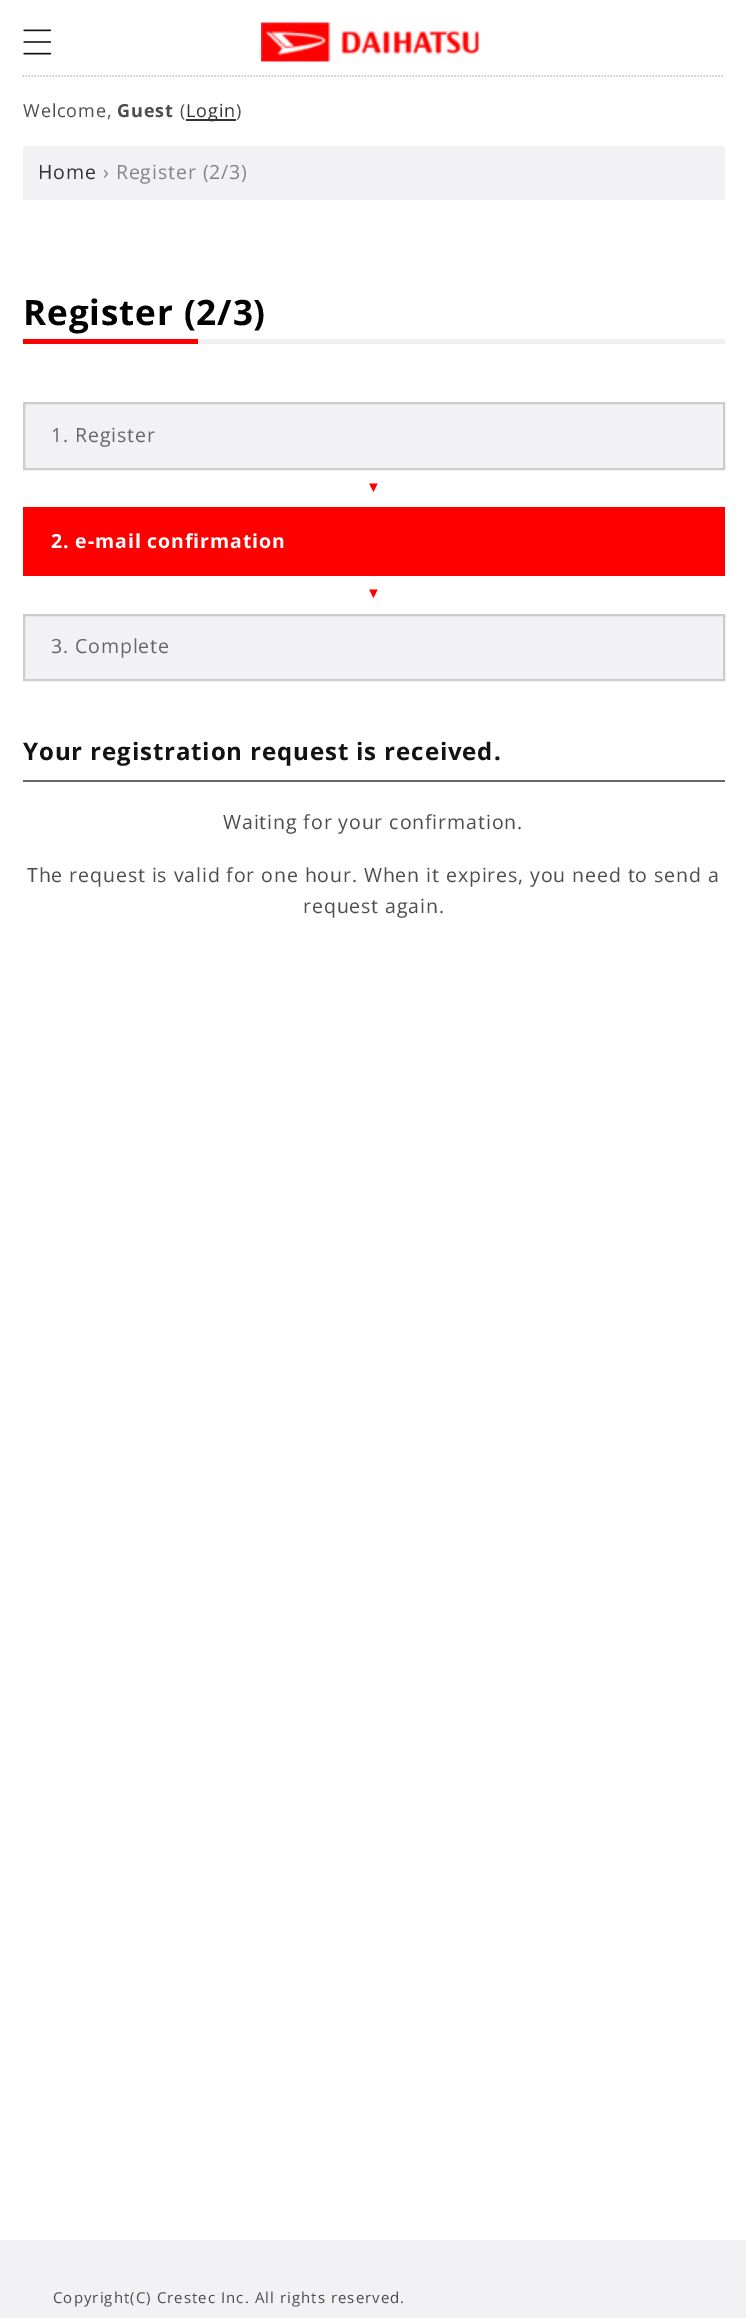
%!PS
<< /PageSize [746 2318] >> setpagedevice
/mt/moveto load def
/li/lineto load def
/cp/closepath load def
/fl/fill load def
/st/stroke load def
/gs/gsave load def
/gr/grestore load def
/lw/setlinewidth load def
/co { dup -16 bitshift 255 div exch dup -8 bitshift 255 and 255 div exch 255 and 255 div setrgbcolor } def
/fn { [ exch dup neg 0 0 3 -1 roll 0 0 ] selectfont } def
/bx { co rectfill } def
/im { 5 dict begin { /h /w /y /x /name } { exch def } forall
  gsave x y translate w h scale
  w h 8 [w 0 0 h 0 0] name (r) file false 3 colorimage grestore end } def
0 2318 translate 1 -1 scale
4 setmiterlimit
0 0 746 2318 16#FFFFFF bx
(media/1.raw) 23 29 29 26 im
(media/2.raw) 261 22 218 40 im
16#C5C5C5 co
1.5 lw
[1.5 1.5] 0 setdash
22.5 76 mt 724.5 76 li st
186 119 50 2 16#333333 bx
23 146 702 54 16#F2F1F3 bx
198 339 527 5 16#F0EFF1 bx
23 339 175 5 16#FF0000 bx
16#F2F1F3 co
24 403 mt 724 403 li 724 469 li 24 469 li cp gs fl gr
16#CCCCCC co
2 lw
[] 0 setdash
st
23 507 702 69 16#FF0000 bx
16#F2F1F3 co
24 615 mt 724 615 li 724 680 li 24 680 li cp gs fl gr
16#CCCCCC co
st
23 780 702 2 16#666666 bx
0 2240 746 78 16#F2F1F3 bx
/OpenSans-Regular 18 fn
16#4D4D4D co
23 117 mt .9 0 (Welcome,) ashow
/OpenSans-Bold 18 fn
117 117 mt .9 0 (Guest) ashow
/OpenSans-Regular 18 fn
180 117 mt .9 0 (\() ashow
16#333333 co
186 117 mt .9 0 (Login) ashow
16#4D4D4D co
236 117 mt .9 0 (\)) ashow
/OpenSans-Regular 19.5 fn
16#333333 co
38 179 mt .9 0 (Home) ashow
16#848484 co
103 179 mt .9 0 (› Register \(2/3\)) ashow
/OpenSans-Bold 35 fn
16#000000 co
23 325 mt .9 0 (Register \(2/3\)) ashow
/OpenSans-Regular 19.5 fn
16#666666 co
51 442 mt .9 0 (1. Register) ashow
/LiberationSans-Regular 15 fn
16#FF0000 co
366 492 mt .9 0 (▼) ashow
/OpenSans-Bold 19.5 fn
16#FFFFFF co
51 548 mt .9 0 (2. e-mail confirmation) ashow
/LiberationSans-Regular 15 fn
16#FF0000 co
366 598 mt .9 0 (▼) ashow
/OpenSans-Regular 19.5 fn
16#666666 co
51 653 mt .9 0 (3. Complete) ashow
/OpenSans-Bold 24 fn
16#121212 co
23 760 mt .9 0 (Your registration request is received.) ashow
/OpenSans-Regular 19.5 fn
16#4D4D4D co
223 829 mt .9 0 (Waiting for your confirmation.) ashow
27 882 mt .9 0 (The request is valid for one hour. When it expires, you need to send a) ashow
303 913 mt .9 0 (request again.) ashow
/OpenSans-Regular 15 fn
53 2303 mt 1.05 0 (Copyright\(C\) Crestec Inc. All rights reserved.) ashow
showpage
